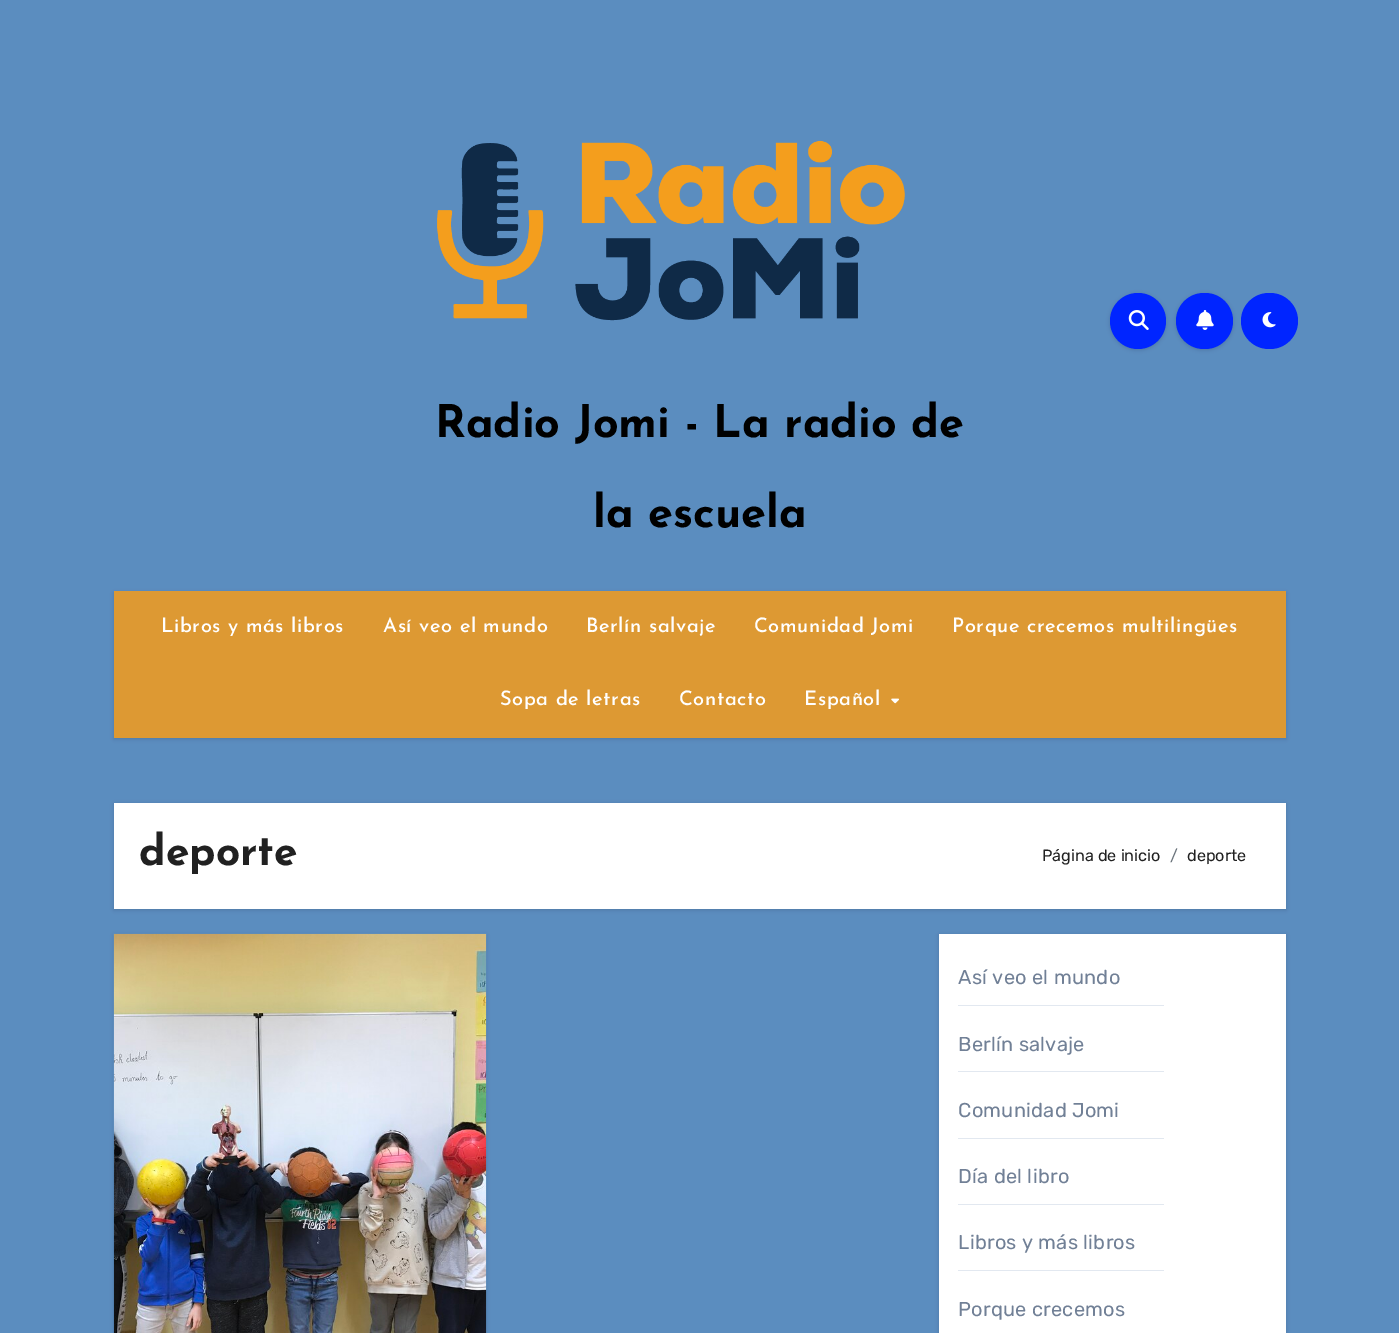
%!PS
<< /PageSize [1399 1333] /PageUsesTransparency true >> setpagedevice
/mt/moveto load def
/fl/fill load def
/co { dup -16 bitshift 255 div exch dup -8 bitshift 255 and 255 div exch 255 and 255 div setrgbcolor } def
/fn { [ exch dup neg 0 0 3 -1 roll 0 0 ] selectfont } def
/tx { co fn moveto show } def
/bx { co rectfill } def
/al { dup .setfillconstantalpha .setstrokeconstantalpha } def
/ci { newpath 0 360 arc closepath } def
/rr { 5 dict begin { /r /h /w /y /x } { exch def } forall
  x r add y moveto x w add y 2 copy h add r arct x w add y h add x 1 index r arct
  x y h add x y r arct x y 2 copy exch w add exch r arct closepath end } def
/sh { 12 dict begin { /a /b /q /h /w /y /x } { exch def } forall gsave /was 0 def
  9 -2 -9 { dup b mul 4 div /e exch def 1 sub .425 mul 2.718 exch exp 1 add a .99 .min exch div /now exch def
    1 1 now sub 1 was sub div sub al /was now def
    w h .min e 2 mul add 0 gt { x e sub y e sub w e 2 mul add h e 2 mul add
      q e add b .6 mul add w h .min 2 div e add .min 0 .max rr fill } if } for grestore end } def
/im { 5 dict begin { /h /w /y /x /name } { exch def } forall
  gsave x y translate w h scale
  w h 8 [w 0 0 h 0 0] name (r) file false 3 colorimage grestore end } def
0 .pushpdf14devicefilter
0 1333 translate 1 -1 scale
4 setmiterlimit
0 0 1399 1333 16#5B8DBF bx
16#000000 co
1110 294 56 56 28 2 .15 sh
16#0025FF co
1138 321 28 ci fl
(media/1.raw) 1128 310 21 20 im
16#000000 co
1176 294 57 56 28 2 .15 sh
16#0025FF co
1176 293 57 56 28 rr fl
(media/2.raw) 1196 310 18 20 im
1241 293 57 56 28 rr fl
(media/3.raw) 1262 312 14 16 im
(media/4.raw) 437 140 468 181 im
16#000000 co
114 593 1172 146 0 2 .15 sh
114 591 1172 147 16#DD9933 bx
(media/5.raw) 891 698 8 6 im
16#000000 co
114 804 1172 106 0 2 .15 sh
114 803 1172 106 16#FFFFFF bx
16#000000 co
114 935 372 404 0 2 .15 sh
(media/6.raw) 113 933 374 400 im
939 935 347 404 0 2 .15 sh
939 934 347 399 16#FFFFFF bx
958 1005 206 1 16#E2E8F0 bx
958 1071 206 1 16#E2E8F0 bx
958 1138 206 1 16#E2E8F0 bx
958 1204 206 1 16#E2E8F0 bx
958 1270 206 1 16#E2E8F0 bx
(Radio Jomi - La radio de) 435 437 /JosefinSans-Bold 45 16#000000 tx
(la escuela) 593 527 /JosefinSans-Bold 45 16#000000 tx
/JosefinSans-Medium 20 fn
16#FFFFFF co
161 632 mt .6 0 (Libros y más libros) ashow
383 632 mt .6 0 (Así veo el mundo) ashow
586 632 mt .6 0 (Berlín salvaje) ashow
754 632 mt .6 0 (Comunidad Jomi) ashow
952 632 mt .6 0 (Porque crecemos multilingües) ashow
500 705 mt .6 0 (Sopa de letras) ashow
679 705 mt .6 0 (Contacto) ashow
804 705 mt .6 0 (Español) ashow
(deporte) 139 865 /JosefinSans-Bold 42.5 16#212121 tx
(Página de inicio) 1042 861 /Rubik-Light 16.25 16#212121 tx
(/) 1170 861 /Rubik-Light 16.25 16#6C757D tx
(deporte) 1187 861 /Rubik-Light 16.25 16#212121 tx
/Rubik-Light 20 fn
16#718096 co
958 984 mt .25 0 (Así veo el mundo) ashow
958 1051 mt .25 0 (Berlín salvaje) ashow
958 1117 mt .25 0 (Comunidad Jomi) ashow
958 1183 mt .25 0 (Día del libro) ashow
958 1249 mt .25 0 (Libros y más libros) ashow
958 1316 mt .25 0 (Porque crecemos) ashow
.poppdf14devicefilter showpage
